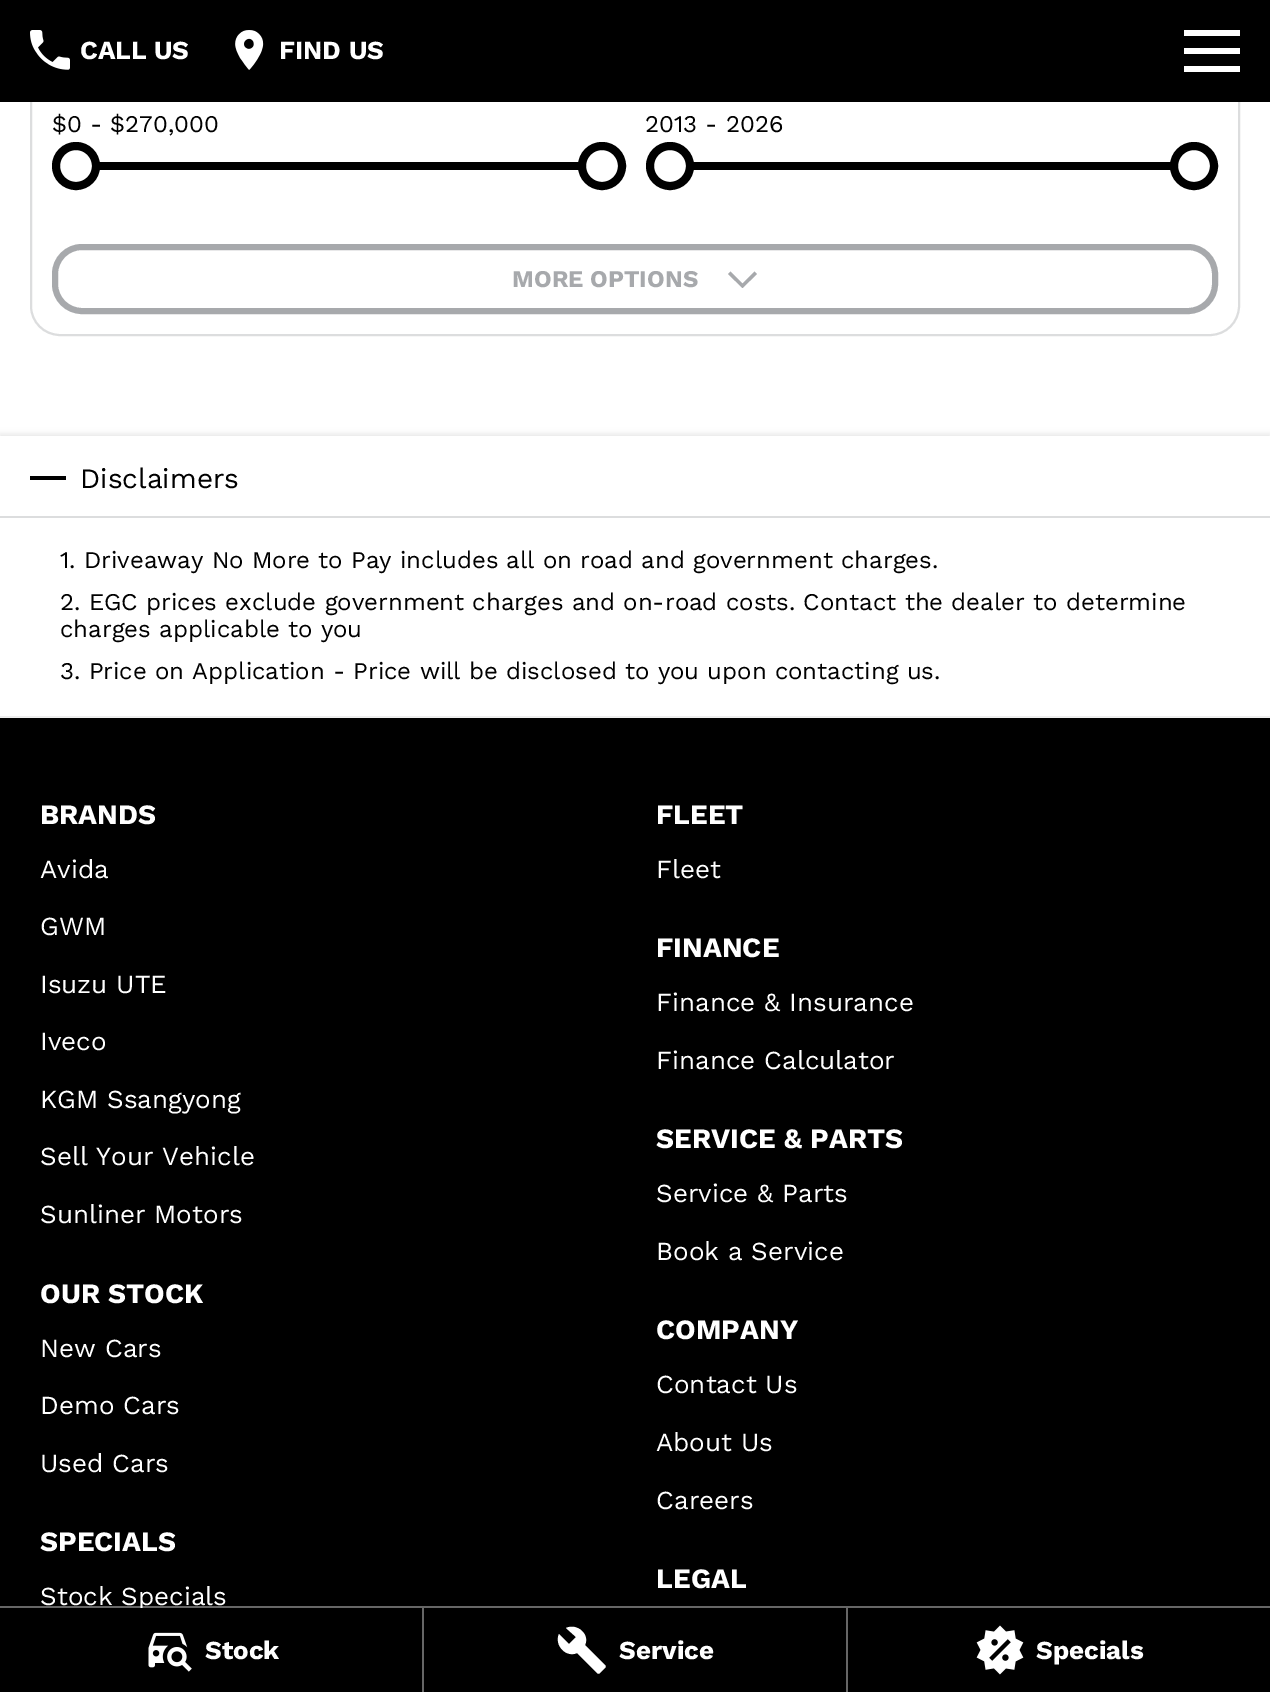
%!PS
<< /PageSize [1270 1692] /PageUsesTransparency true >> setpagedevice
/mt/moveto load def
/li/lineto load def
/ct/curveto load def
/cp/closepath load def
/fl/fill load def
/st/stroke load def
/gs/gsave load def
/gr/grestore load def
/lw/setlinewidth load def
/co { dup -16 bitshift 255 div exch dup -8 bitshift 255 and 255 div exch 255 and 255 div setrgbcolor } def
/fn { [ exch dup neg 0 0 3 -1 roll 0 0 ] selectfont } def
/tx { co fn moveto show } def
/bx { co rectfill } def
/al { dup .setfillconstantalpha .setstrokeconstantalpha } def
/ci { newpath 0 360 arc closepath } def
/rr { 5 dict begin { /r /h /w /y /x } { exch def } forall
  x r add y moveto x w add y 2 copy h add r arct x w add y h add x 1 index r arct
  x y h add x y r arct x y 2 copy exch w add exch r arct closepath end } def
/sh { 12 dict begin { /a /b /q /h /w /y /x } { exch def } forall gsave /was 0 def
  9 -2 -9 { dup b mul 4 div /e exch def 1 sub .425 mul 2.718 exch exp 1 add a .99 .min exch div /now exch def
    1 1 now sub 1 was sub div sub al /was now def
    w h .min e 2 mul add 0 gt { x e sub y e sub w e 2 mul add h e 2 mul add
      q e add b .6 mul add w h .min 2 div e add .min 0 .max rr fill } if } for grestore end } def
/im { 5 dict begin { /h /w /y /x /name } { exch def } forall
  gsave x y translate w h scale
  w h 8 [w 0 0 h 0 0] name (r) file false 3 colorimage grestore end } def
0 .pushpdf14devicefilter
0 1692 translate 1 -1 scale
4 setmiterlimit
0 0 1270 1692 16#FFFFFF bx
16#DCDDDE co
2 lw
31 -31 1208 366 29 rr st
0 0 1270 102 16#000000 bx
(media/1.raw) 30 30 40 40 im
(media/2.raw) 235 30 29 40 im
1184 30 56 6 16#FFFFFF bx
1184 48 56 6 16#FFFFFF bx
1184 66 56 6 16#FFFFFF bx
99 162 480 8 16#000000 bx
16#FFFFFF co
76 166 20 ci gs fl gr
16#000000 co
8 lw
st
16#FFFFFF co
602 166 20 ci gs fl gr
16#000000 co
st
693 162 478 8 16#000000 bx
16#FFFFFF co
670 166 20 ci gs fl gr
16#000000 co
st
16#FFFFFF co
1194 166 20 ci gs fl gr
16#000000 co
st
16#A7A9AC co
6 lw
55 247 1160 64 27 rr st
757 274 mt 742.5 288 li 728 274 li 730.5 271.5 li 742.5 283.5 li 754.5 271.5 li cp fl
0 718 1270 974 16#000000 bx
0 716 1270 2 16#F2F2F2 bx
gs
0 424 mt 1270 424 li 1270 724 li 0 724 li cp 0 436 mt 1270 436 li 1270 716 li 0 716 li cp eoclip newpath
16#000000 co
0 434 1270 280 0 3 .1 sh
gr
30 476 36 4 16#000000 bx
0 516 1270 2 16#DCDDDE bx
422 1608 2 84 16#666666 bx
(media/3.raw) 148 1632 44 40 im
846 1608 2 84 16#666666 bx
16#FFFFFF co
605 1665 mt 585 1645 li 590 1634 577 1623 566 1628 ct 576 1637 li 569 1644 li 559 1634 li 554 1645 566 1658 577 1653 ct 597 1673 li 598 1674 599 1674 600 1673 ct 605 1668 li 606 1667 606 1666 605 1665 ct cp fl
(media/4.raw) 976 1625 48 50 im
(CALL US) 80 59 /WorkSans-Bold 26 16#FFFFFF tx
(FIND US) 279 59 /WorkSans-Bold 26 16#FFFFFF tx
($0 - $270,000) 52 132 /WorkSans-Regular 24 16#000000 tx
(2013 - 2026) 645 132 /WorkSans-Regular 24 16#000000 tx
(MORE OPTIONS) 512 287 /WorkSans-Bold 24 16#A7A9AC tx
(Disclaimers) 80 488 /WorkSans-Regular 28 16#000000 tx
(1. Driveaway No More to Pay includes all on road and government charges.) 60 568 /WorkSans-Regular 24 16#000000 tx
(2. EGC prices exclude government charges and on-road costs. Contact the dealer to determine) 60 610 /WorkSans-Regular 24 16#000000 tx
(charges applicable to you) 60 637 /WorkSans-Regular 24 16#000000 tx
(3. Price on Application - Price will be disclosed to you upon contacting us.) 60 679 /WorkSans-Regular 24 16#000000 tx
(BRANDS) 40 824 /WorkSans-Bold 28 16#FFFFFF tx
(Avida) 40 878 /WorkSans-Regular 26 16#FFFFFF tx
(GWM) 40 935 /WorkSans-Regular 26 16#FFFFFF tx
(Isuzu UTE) 40 993 /WorkSans-Regular 26 16#FFFFFF tx
(Iveco) 40 1050 /WorkSans-Regular 26 16#FFFFFF tx
(KGM Ssangyong) 40 1108 /WorkSans-Regular 26 16#FFFFFF tx
(Sell Your Vehicle) 40 1165 /WorkSans-Regular 26 16#FFFFFF tx
(Sunliner Motors) 40 1223 /WorkSans-Regular 26 16#FFFFFF tx
(FLEET) 656 824 /WorkSans-Bold 28 16#FFFFFF tx
(Fleet) 656 878 /WorkSans-Regular 26 16#FFFFFF tx
(FINANCE) 656 957 /WorkSans-Bold 28 16#FFFFFF tx
(Finance & Insurance) 656 1011 /WorkSans-Regular 26 16#FFFFFF tx
(Finance Calculator) 656 1069 /WorkSans-Regular 26 16#FFFFFF tx
(SERVICE & PARTS) 656 1148 /WorkSans-Bold 28 16#FFFFFF tx
(Service & Parts) 656 1202 /WorkSans-Regular 26 16#FFFFFF tx
(Book a Service) 656 1260 /WorkSans-Regular 26 16#FFFFFF tx
(OUR STOCK) 40 1303 /WorkSans-Bold 28 16#FFFFFF tx
(New Cars) 40 1357 /WorkSans-Regular 26 16#FFFFFF tx
(Demo Cars) 40 1414 /WorkSans-Regular 26 16#FFFFFF tx
(Used Cars) 40 1472 /WorkSans-Regular 26 16#FFFFFF tx
(COMPANY) 656 1339 /WorkSans-Bold 28 16#FFFFFF tx
(Contact Us) 656 1393 /WorkSans-Regular 26 16#FFFFFF tx
(About Us) 656 1451 /WorkSans-Regular 26 16#FFFFFF tx
(Careers) 656 1509 /WorkSans-Regular 26 16#FFFFFF tx
(SPECIALS) 40 1551 /WorkSans-Bold 28 16#FFFFFF tx
(Stock Specials) 40 1605 /WorkSans-Regular 26 16#FFFFFF tx
(LEGAL) 656 1588 /WorkSans-Bold 28 16#FFFFFF tx
0.4 al
0 1606 1270 2 16#FFFFFF bx
1 al
140 1608 3 3 16#000000 bx
(Stock) 205 1659 /WorkSans-Bold 26 16#FFFFFF tx
(Service) 619 1659 /WorkSans-Bold 26 16#FFFFFF tx
(Specials) 1036 1659 /WorkSans-Bold 26 16#FFFFFF tx
.poppdf14devicefilter showpage
